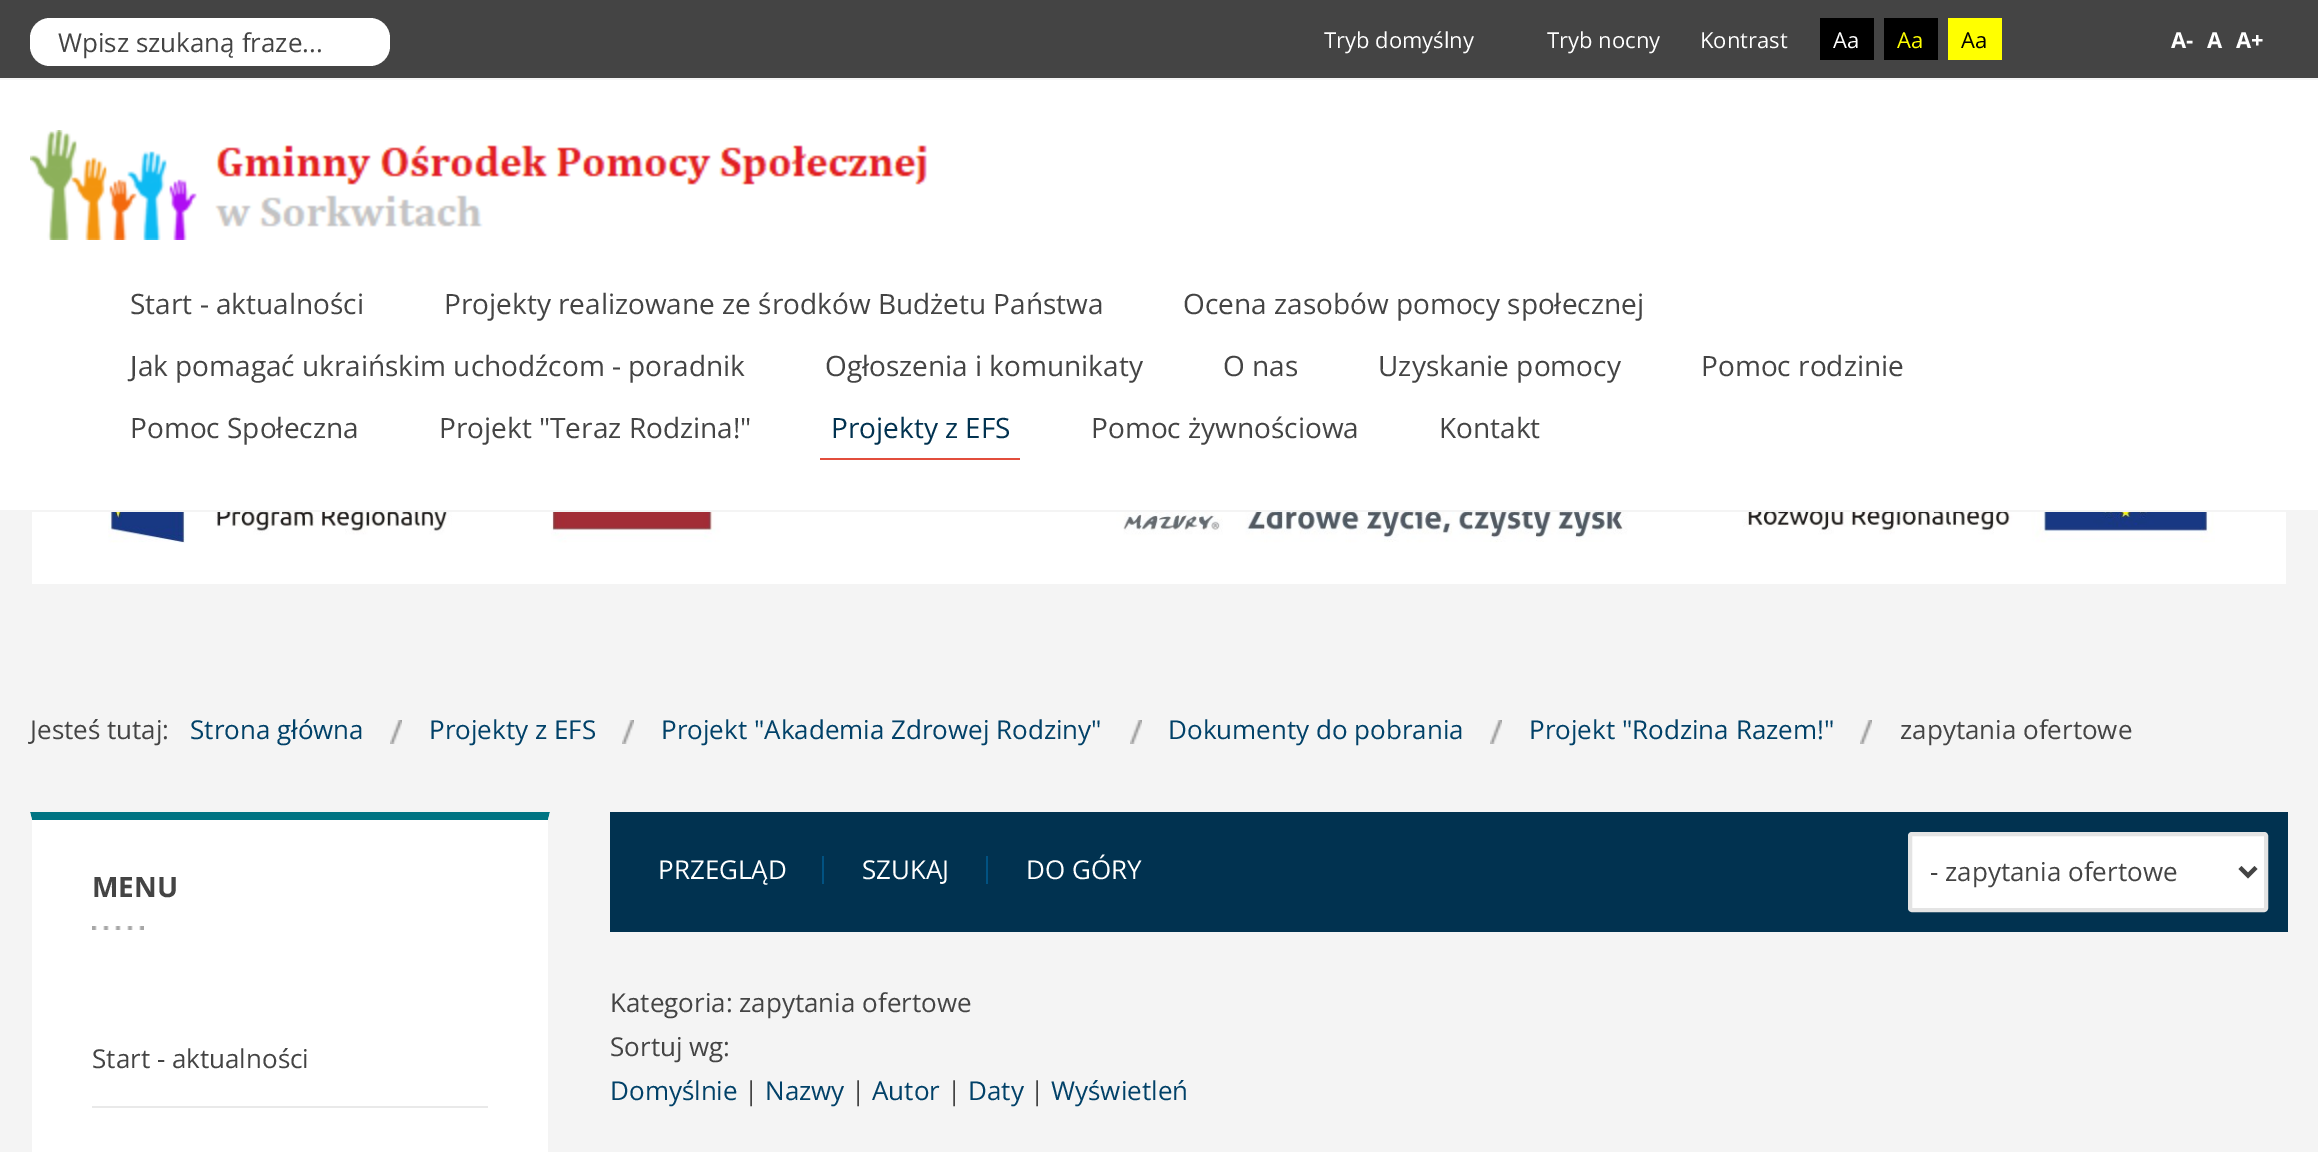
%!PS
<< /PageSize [2318 1152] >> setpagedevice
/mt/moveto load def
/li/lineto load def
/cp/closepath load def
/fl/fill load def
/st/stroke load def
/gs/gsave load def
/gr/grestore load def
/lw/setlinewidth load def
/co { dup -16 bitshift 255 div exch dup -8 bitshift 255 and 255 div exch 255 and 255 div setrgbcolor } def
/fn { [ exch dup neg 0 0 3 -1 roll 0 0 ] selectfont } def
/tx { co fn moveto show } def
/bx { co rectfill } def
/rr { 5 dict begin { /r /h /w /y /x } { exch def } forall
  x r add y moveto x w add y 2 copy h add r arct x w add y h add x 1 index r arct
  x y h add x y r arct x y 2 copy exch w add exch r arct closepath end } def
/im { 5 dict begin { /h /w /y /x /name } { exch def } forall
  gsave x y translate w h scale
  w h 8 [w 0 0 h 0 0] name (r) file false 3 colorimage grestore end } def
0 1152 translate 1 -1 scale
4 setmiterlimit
0 0 2318 1152 16#F4F4F4 bx
0 0 2318 78 16#444444 bx
16#FFFFFF co
30 18 360 48 20 rr fl
1820 18 54 42 16#000000 bx
1884 18 54 42 16#000000 bx
1948 18 54 42 16#FFFF00 bx
0 80 2318 430 16#FFFFFF bx
(media/1.raw) 30 130 897 110 im
820 458 200 2 16#E24E3C bx
32 512 2254 72 16#FFFFFF bx
(media/2.raw) 108 512 2107 31 im
(media/3.raw) 390 720 12 24 im
(media/3.raw) 622 720 12 24 im
(media/3.raw) 1130 720 12 24 im
(media/3.raw) 1490 720 12 24 im
(media/3.raw) 1860 720 12 24 im
32 820 516 332 16#FFFFFF bx
16#007483 co
30 812 mt 550 812 li 548 820 li 32 820 li cp fl
16#F4F4F4 co
550 812 mt 550 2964 li 548 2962 li 548 820 li cp fl
30 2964 mt 30 812 li 32 820 li 32 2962 li cp fl
(media/4.raw) 92 926 52 4 im
92 1106 396 2 16#E9E9E9 bx
610 812 1678 120 16#013250 bx
822 856 2 28 16#015282 bx
986 856 2 28 16#015282 bx
16#FFFFFF co
1910 834 356 76 2 rr gs fl gr
16#E4E4E4 co
4 lw
st
16#444444 co
2240 867.5 mt 2248 875.5 li 2256 867.5 li st
(Wpisz szukaną fraze...) 58 52 /OpenSans-Regular 26 16#444444 tx
(Tryb domyślny) 1324 48 /OpenSans-Regular 22 16#FFFFFF tx
(Tryb nocny) 1547 48 /OpenSans-Regular 22 16#FFFFFF tx
(Kontrast) 1700 48 /OpenSans-Regular 22 16#FFFFFF tx
(Aa) 1833 48 /OpenSans-Regular 22 16#FFFFFF tx
(Aa) 1897 48 /OpenSans-Regular 22 16#FFFF00 tx
(Aa) 1961 48 /OpenSans-Regular 22 16#000000 tx
(A-) 2171 48 /OpenSans-Bold 22 16#FFFFFF tx
(A) 2207 48 /OpenSans-Bold 22 16#FFFFFF tx
(A+) 2236 48 /OpenSans-Bold 22 16#FFFFFF tx
(Start - aktualności) 130 314 /OpenSans-Regular 28 16#444444 tx
(Projekty realizowane ze środków Budżetu Państwa) 444 314 /OpenSans-Regular 28 16#444444 tx
(Ocena zasobów pomocy społecznej) 1183 314 /OpenSans-Regular 28 16#444444 tx
(Jak pomagać ukraińskim uchodźcom - poradnik) 130 376 /OpenSans-Regular 28 16#444444 tx
(Ogłoszenia i komunikaty) 825 376 /OpenSans-Regular 28 16#444444 tx
(O nas) 1223 376 /OpenSans-Regular 28 16#444444 tx
(Uzyskanie pomocy) 1378 376 /OpenSans-Regular 28 16#444444 tx
(Pomoc rodzinie) 1701 376 /OpenSans-Regular 28 16#444444 tx
(Pomoc Społeczna) 130 438 /OpenSans-Regular 28 16#444444 tx
(Projekt "Teraz Rodzina!") 439 438 /OpenSans-Regular 28 16#444444 tx
(Projekty z EFS) 831 438 /OpenSans-Regular 28 16#013250 tx
(Pomoc żywnościowa) 1091 438 /OpenSans-Regular 28 16#444444 tx
(Kontakt) 1439 438 /OpenSans-Regular 28 16#444444 tx
(Jesteś tutaj:) 30 739 /OpenSans-Regular 26 16#444444 tx
(Strona główna) 190 739 /OpenSans-Regular 26 16#014168 tx
(Projekty z EFS) 429 739 /OpenSans-Regular 26 16#014168 tx
(Projekt "Akademia Zdrowej Rodziny") 661 739 /OpenSans-Regular 26 16#014168 tx
(Dokumenty do pobrania) 1168 739 /OpenSans-Regular 26 16#014168 tx
(Projekt "Rodzina Razem!") 1529 739 /OpenSans-Regular 26 16#014168 tx
(zapytania ofertowe) 1900 739 /OpenSans-Regular 26 16#444444 tx
(MENU) 92 897 /OpenSans-Bold 28 16#444444 tx
(Start - aktualności) 92 1068 /OpenSans-Regular 26 16#444444 tx
(PRZEGLĄD) 658 879 /OpenSans-Regular 26 16#FFFFFF tx
(SZUKAJ) 862 879 /OpenSans-Regular 26 16#FFFFFF tx
(DO GÓRY) 1026 879 /OpenSans-Regular 26 16#FFFFFF tx
(- zapytania ofertowe) 1930 881 /OpenSans-Regular 26 16#444444 tx
(Kategoria: zapytania ofertowe) 610 1012 /OpenSans-Regular 26 16#444444 tx
(Sortuj wg:) 610 1056 /OpenSans-Regular 26 16#444444 tx
(Domyślnie) 610 1100 /OpenSans-Regular 26 16#014168 tx
(|) 744 1100 /OpenSans-Regular 26 16#444444 tx
(Nazwy) 765 1100 /OpenSans-Regular 26 16#014168 tx
(|) 851 1100 /OpenSans-Regular 26 16#444444 tx
(Autor) 872 1100 /OpenSans-Regular 26 16#014168 tx
(|) 947 1100 /OpenSans-Regular 26 16#444444 tx
(Daty) 968 1100 /OpenSans-Regular 26 16#014168 tx
(|) 1030 1100 /OpenSans-Regular 26 16#444444 tx
(Wyświetleń) 1051 1100 /OpenSans-Regular 26 16#014168 tx
showpage
